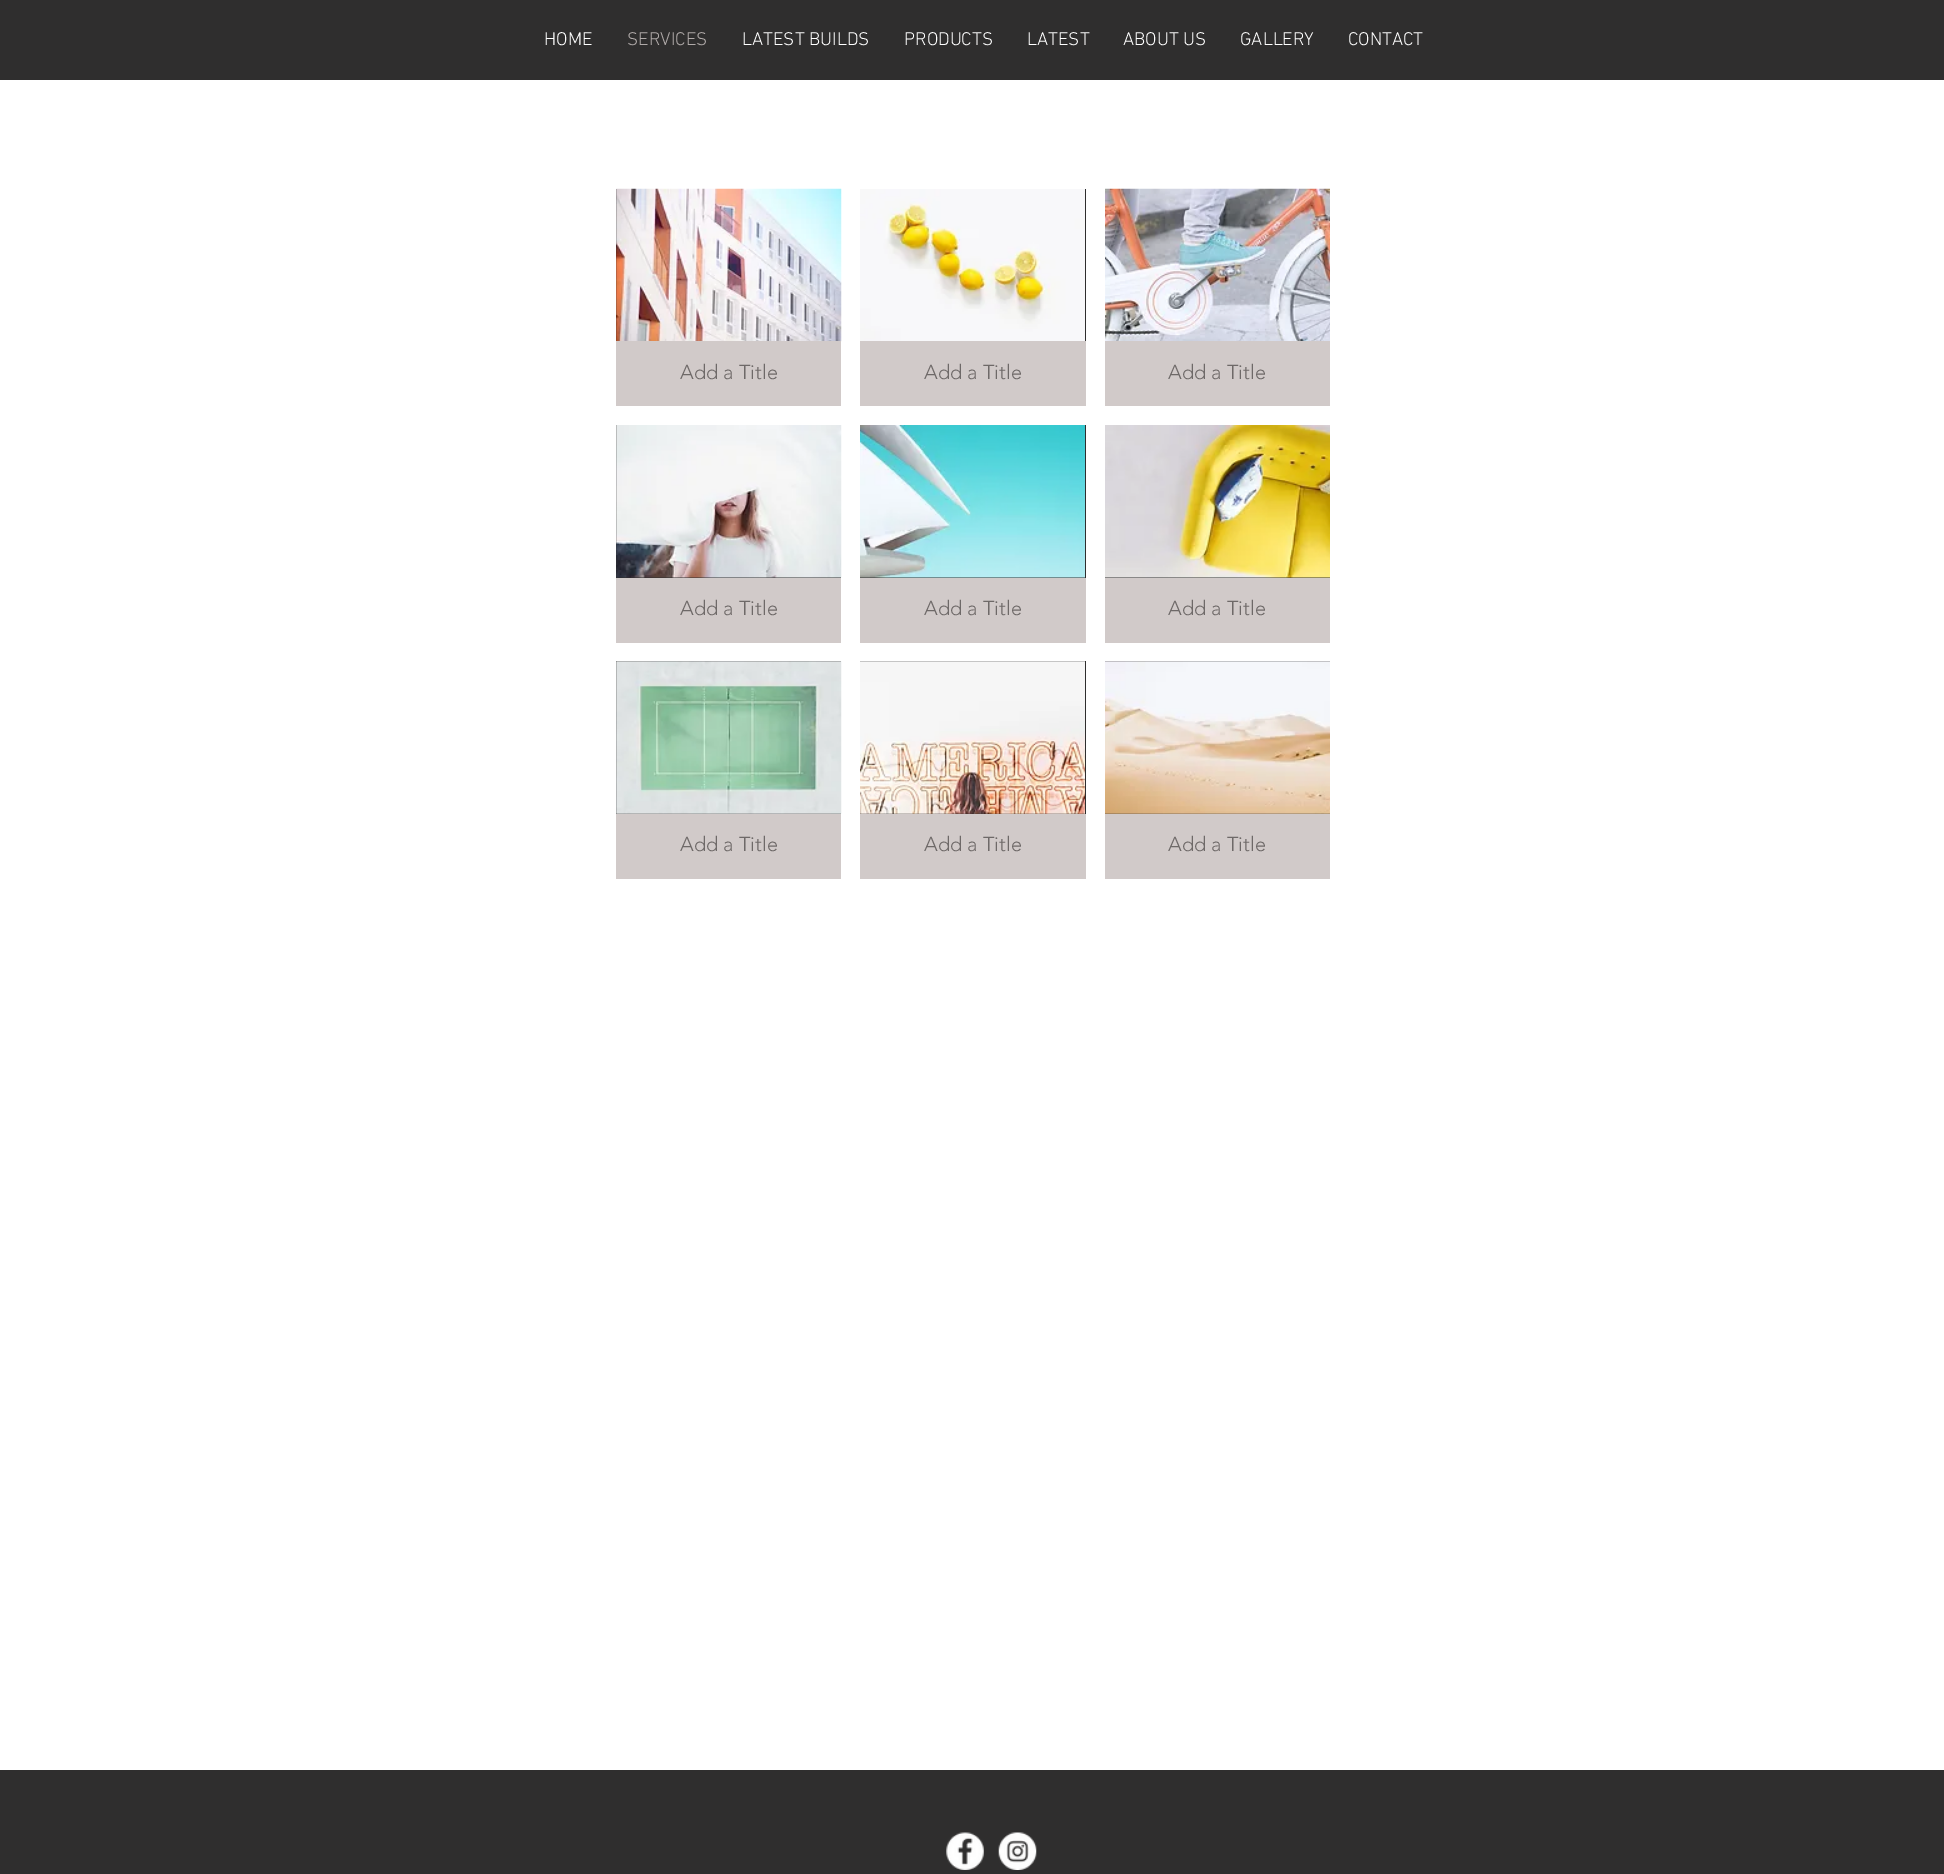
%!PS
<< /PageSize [1944 1874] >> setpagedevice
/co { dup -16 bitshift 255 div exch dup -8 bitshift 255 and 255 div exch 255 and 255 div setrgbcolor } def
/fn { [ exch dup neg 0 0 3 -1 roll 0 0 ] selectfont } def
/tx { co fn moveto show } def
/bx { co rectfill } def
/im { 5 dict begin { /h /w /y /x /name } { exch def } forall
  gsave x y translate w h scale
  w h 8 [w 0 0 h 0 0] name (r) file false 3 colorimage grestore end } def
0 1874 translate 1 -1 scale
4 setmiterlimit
0 0 1944 1874 16#FFFFFF bx
0 0 1944 80 16#2F2E2E bx
(media/1.raw) 616 188 226 154 im
616 341 225 65 16#D1CAC9 bx
1085 189 1 152 16#2F2E2E bx
(media/2.raw) 860 189 225 152 im
860 341 226 65 16#D1CAC9 bx
(media/3.raw) 1105 188 225 153 im
1105 341 225 65 16#D1CAC9 bx
616 425 225 153 16#2F2E2E bx
(media/4.raw) 616 425 226 153 im
616 578 225 65 16#D1CAC9 bx
860 425 226 153 16#2F2E2E bx
(media/5.raw) 860 425 225 153 im
860 578 226 65 16#D1CAC9 bx
1105 577 225 1 16#2F2E2E bx
(media/6.raw) 1105 425 225 153 im
1105 578 225 65 16#D1CAC9 bx
616 661 225 153 16#2F2E2E bx
(media/7.raw) 616 661 226 153 im
616 814 225 65 16#D1CAC9 bx
860 661 226 153 16#2F2E2E bx
(media/8.raw) 860 661 225 153 im
860 814 226 65 16#D1CAC9 bx
(media/9.raw) 1105 661 225 153 im
1105 814 225 65 16#D1CAC9 bx
0 1770 1944 104 16#2F2E2E bx
(media/10.raw) 946 1832 38 38 im
(media/11.raw) 998 1832 39 38 im
(HOME) 544 45 /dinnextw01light-Light 18.75 16#FFFFFF tx
(SERVICES) 627 45 /dinnextw01light-Light 18.75 16#B0AAA9 tx
(LATEST BUILDS) 742 45 /dinnextw01light-Light 18.75 16#FFFFFF tx
(PRODUCTS) 904 45 /dinnextw01light-Light 18.75 16#FFFFFF tx
(LATEST) 1027 45 /dinnextw01light-Light 18.75 16#FFFFFF tx
(ABOUT US) 1123 45 /dinnextw01light-Light 18.75 16#FFFFFF tx
(GALLERY) 1240 45 /dinnextw01light-Light 18.75 16#FFFFFF tx
(CONTACT) 1348 45 /dinnextw01light-Light 18.75 16#FFFFFF tx
(Add a Title) 680 379 /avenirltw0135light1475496-Light 20 16#6E6968 tx
(Add a Title) 924 379 /avenirltw0135light1475496-Light 20 16#6E6968 tx
(Add a Title) 1168 379 /avenirltw0135light1475496-Light 20 16#6E6968 tx
(Add a Title) 680 615 /avenirltw0135light1475496-Light 20 16#6E6968 tx
(Add a Title) 924 615 /avenirltw0135light1475496-Light 20 16#6E6968 tx
(Add a Title) 1168 615 /avenirltw0135light1475496-Light 20 16#6E6968 tx
(Add a Title) 680 851 /avenirltw0135light1475496-Light 20 16#6E6968 tx
(Add a Title) 924 851 /avenirltw0135light1475496-Light 20 16#6E6968 tx
(Add a Title) 1168 851 /avenirltw0135light1475496-Light 20 16#6E6968 tx
showpage
